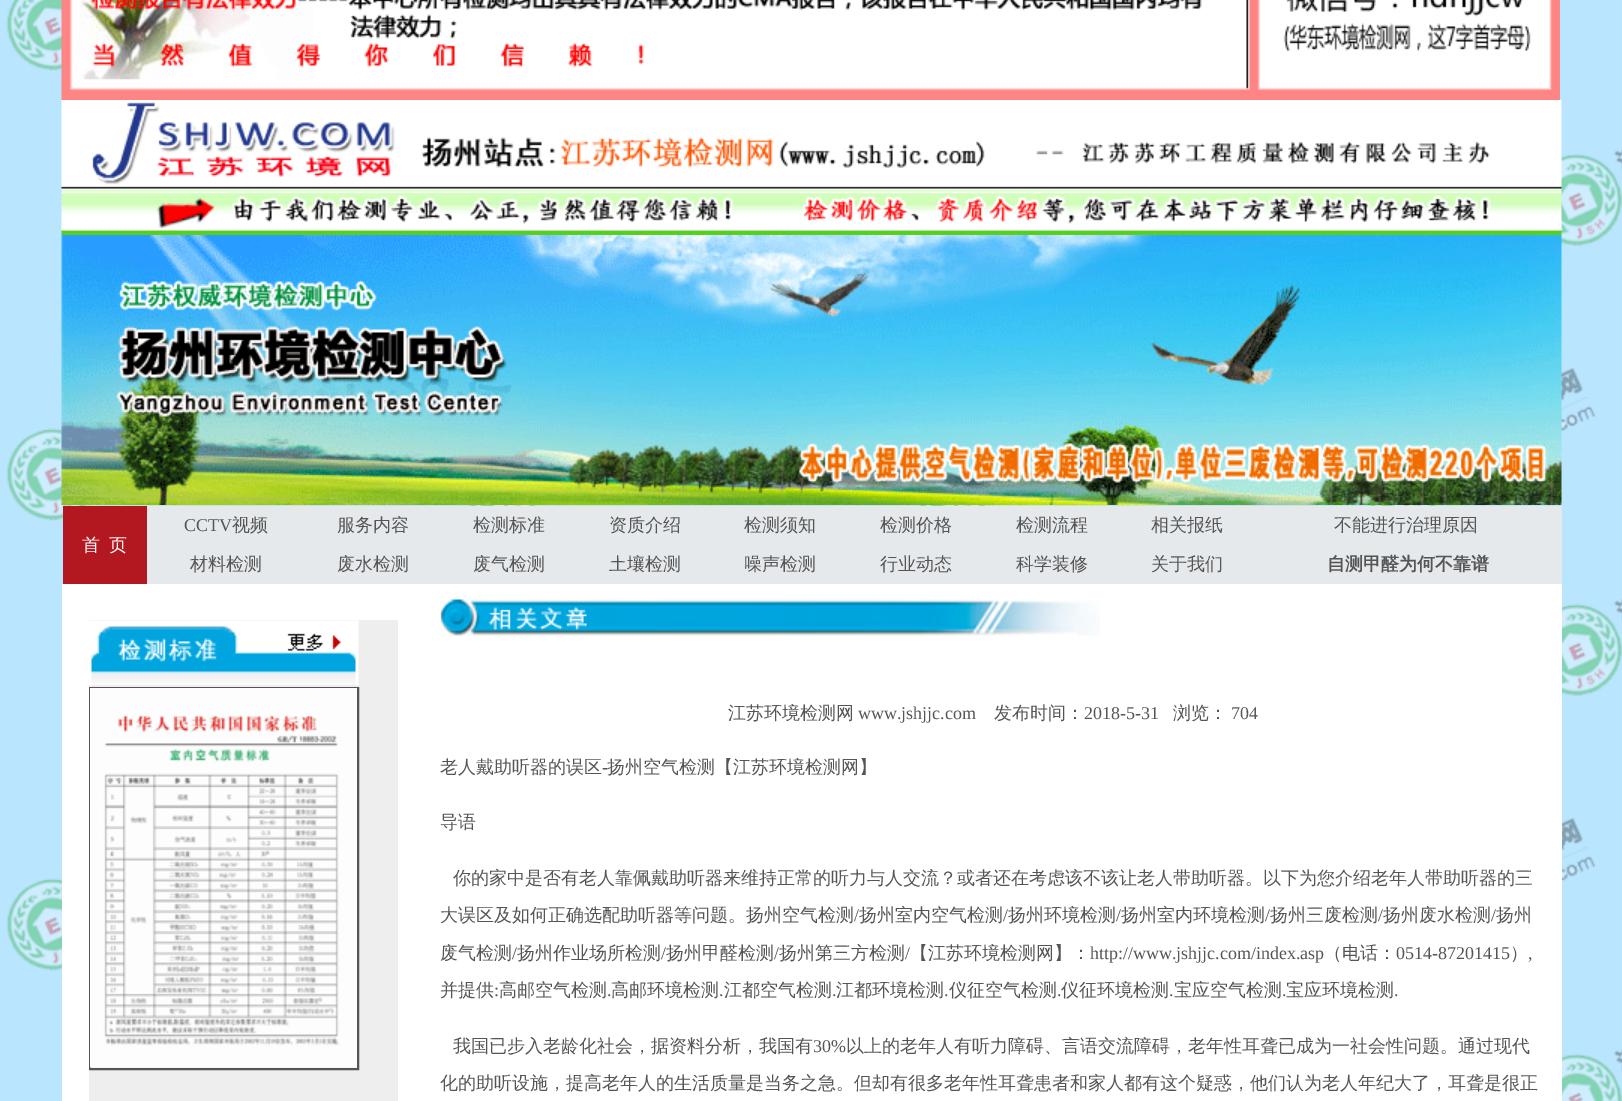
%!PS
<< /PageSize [1622 1101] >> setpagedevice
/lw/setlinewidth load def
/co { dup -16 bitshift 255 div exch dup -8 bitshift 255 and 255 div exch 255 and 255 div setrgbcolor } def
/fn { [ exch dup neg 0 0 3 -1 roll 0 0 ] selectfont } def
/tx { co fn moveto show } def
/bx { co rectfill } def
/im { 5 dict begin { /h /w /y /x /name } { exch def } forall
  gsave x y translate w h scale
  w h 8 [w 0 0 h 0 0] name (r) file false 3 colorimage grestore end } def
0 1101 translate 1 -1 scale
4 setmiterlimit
0 0 1622 1101 16#FFFFFF bx
(media/1.raw) 0 0 1622 1101 im
(media/2.raw) 61 0 1499 100 im
(media/3.raw) 61 100 1501 135 im
(media/4.raw) 61 235 1501 270 im
147 506 1415 78 16#E5E9EC bx
63 506 84 78 16#B31820 bx
62 584 1500 517 16#FFFFFF bx
89 620 309 481 16#EEEEEE bx
(media/5.raw) 89 620 270 65 im
16#555555 co
2 lw
90 688 268 381 rectstroke
(media/6.raw) 90 688 267 380 im
(media/7.raw) 440 598 660 38 im
(CCTV) 184 531 /LiberationSerif-Regular 18 16#555555 tx
(视频) 232 531 /WenQuanYiZenHei-Medium 18 16#555555 tx
(服务内容) 337 531 /WenQuanYiZenHei-Medium 18 16#555555 tx
(检测标准) 473 531 /WenQuanYiZenHei-Medium 18 16#555555 tx
(资质介绍) 609 531 /WenQuanYiZenHei-Medium 18 16#555555 tx
(检测须知) 744 531 /WenQuanYiZenHei-Medium 18 16#555555 tx
(检测价格) 880 531 /WenQuanYiZenHei-Medium 18 16#555555 tx
(检测流程) 1016 531 /WenQuanYiZenHei-Medium 18 16#555555 tx
(相关报纸) 1151 531 /WenQuanYiZenHei-Medium 18 16#555555 tx
(不能进行治理原因) 1334 531 /WenQuanYiZenHei-Medium 18 16#555555 tx
(首) 82 551 /WenQuanYiZenHei-Medium 18 16#FFFFFF tx
(页) 109 551 /WenQuanYiZenHei-Medium 18 16#FFFFFF tx
(材料检测) 190 570 /WenQuanYiZenHei-Medium 18 16#555555 tx
(废水检测) 337 570 /WenQuanYiZenHei-Medium 18 16#555555 tx
(废气检测) 473 570 /WenQuanYiZenHei-Medium 18 16#555555 tx
(土壤检测) 609 570 /WenQuanYiZenHei-Medium 18 16#555555 tx
(噪声检测) 744 570 /WenQuanYiZenHei-Medium 18 16#555555 tx
(行业动态) 880 570 /WenQuanYiZenHei-Medium 18 16#555555 tx
(科学装修) 1016 570 /WenQuanYiZenHei-Medium 18 16#555555 tx
(关于我们) 1151 570 /WenQuanYiZenHei-Medium 18 16#555555 tx
(自测甲醛为何不靠谱) 1327 570 /WenQuanYiZenHei-Bold 18 16#555555 tx
(江苏环境检测网) 728 719 /WenQuanYiZenHei-Medium 18 16#555555 tx
(www.jshjjc.com) 858 719 /LiberationSerif-Regular 18 16#555555 tx
(发布时间：) 994 719 /WenQuanYiZenHei-Medium 18 16#555555 tx
(2018-5-31) 1084 719 /LiberationSerif-Regular 18 16#555555 tx
(浏览：) 1173 719 /WenQuanYiZenHei-Medium 18 16#555555 tx
(704) 1231 719 /LiberationSerif-Regular 18 16#555555 tx
(老人戴助听器的误区) 440 773 /WenQuanYiZenHei-Medium 18 16#555555 tx
(-) 602 773 /LiberationSerif-Regular 18 16#555555 tx
(扬州空气检测【江苏环境检测网】) 607 773 /WenQuanYiZenHei-Medium 18 16#555555 tx
(导语) 440 828 /WenQuanYiZenHei-Medium 18 16#555555 tx
(你的家中是否有老人靠佩戴助听器来维持正常的听力与人交流？或者还在考虑该不该让老人带助听器。以下为您介绍老年人带助听器的三) 453 884 /WenQuanYiZenHei-Medium 18 16#555555 tx
(大误区及如何正确选配助听器等问题。扬州空气检测) 440 921 /WenQuanYiZenHei-Medium 18 16#555555 tx
(/) 854 921 /LiberationSerif-Regular 18 16#555555 tx
(扬州室内空气检测) 859 921 /WenQuanYiZenHei-Medium 18 16#555555 tx
(/) 1003 921 /LiberationSerif-Regular 18 16#555555 tx
(扬州环境检测) 1008 921 /WenQuanYiZenHei-Medium 18 16#555555 tx
(/) 1116 921 /LiberationSerif-Regular 18 16#555555 tx
(扬州室内环境检测) 1121 921 /WenQuanYiZenHei-Medium 18 16#555555 tx
(/) 1265 921 /LiberationSerif-Regular 18 16#555555 tx
(扬州三废检测) 1270 921 /WenQuanYiZenHei-Medium 18 16#555555 tx
(/) 1378 921 /LiberationSerif-Regular 18 16#555555 tx
(扬州废水检测) 1383 921 /WenQuanYiZenHei-Medium 18 16#555555 tx
(/) 1491 921 /LiberationSerif-Regular 18 16#555555 tx
(扬州) 1496 921 /WenQuanYiZenHei-Medium 18 16#555555 tx
(废气检测) 440 959 /WenQuanYiZenHei-Medium 18 16#555555 tx
(/) 512 959 /LiberationSerif-Regular 18 16#555555 tx
(扬州作业场所检测) 517 959 /WenQuanYiZenHei-Medium 18 16#555555 tx
(/) 661 959 /LiberationSerif-Regular 18 16#555555 tx
(扬州甲醛检测) 666 959 /WenQuanYiZenHei-Medium 18 16#555555 tx
(/) 774 959 /LiberationSerif-Regular 18 16#555555 tx
(扬州第三方检测) 779 959 /WenQuanYiZenHei-Medium 18 16#555555 tx
(/) 905 959 /LiberationSerif-Regular 18 16#555555 tx
(【江苏环境检测网】：) 910 959 /WenQuanYiZenHei-Medium 18 16#555555 tx
(http://www.jshjjc.com/index.asp) 1090 959 /LiberationSerif-Regular 18 16#555555 tx
(（电话：) 1324 959 /WenQuanYiZenHei-Medium 18 16#555555 tx
(0514-87201415) 1396 959 /LiberationSerif-Regular 18 16#555555 tx
(）) 1510 959 /WenQuanYiZenHei-Medium 18 16#555555 tx
(,) 1528 959 /LiberationSerif-Regular 18 16#555555 tx
(并提供) 440 996 /WenQuanYiZenHei-Medium 18 16#555555 tx
(:) 494 996 /LiberationSerif-Regular 18 16#555555 tx
(高邮空气检测) 499 996 /WenQuanYiZenHei-Medium 18 16#555555 tx
(.) 607 996 /LiberationSerif-Regular 18 16#555555 tx
(高邮环境检测) 611 996 /WenQuanYiZenHei-Medium 18 16#555555 tx
(.) 719 996 /LiberationSerif-Regular 18 16#555555 tx
(江都空气检测) 724 996 /WenQuanYiZenHei-Medium 18 16#555555 tx
(.) 832 996 /LiberationSerif-Regular 18 16#555555 tx
(江都环境检测) 836 996 /WenQuanYiZenHei-Medium 18 16#555555 tx
(.) 944 996 /LiberationSerif-Regular 18 16#555555 tx
(仪征空气检测) 949 996 /WenQuanYiZenHei-Medium 18 16#555555 tx
(.) 1057 996 /LiberationSerif-Regular 18 16#555555 tx
(仪征环境检测) 1061 996 /WenQuanYiZenHei-Medium 18 16#555555 tx
(.) 1169 996 /LiberationSerif-Regular 18 16#555555 tx
(宝应空气检测) 1174 996 /WenQuanYiZenHei-Medium 18 16#555555 tx
(.) 1282 996 /LiberationSerif-Regular 18 16#555555 tx
(宝应环境检测) 1286 996 /WenQuanYiZenHei-Medium 18 16#555555 tx
(.) 1394 996 /LiberationSerif-Regular 18 16#555555 tx
(我国已步入老龄化社会，据资料分析，我国有) 453 1052 /WenQuanYiZenHei-Medium 18 16#555555 tx
(30%) 813 1052 /LiberationSerif-Regular 18 16#555555 tx
(以上的老年人有听力障碍、言语交流障碍，老年性耳聋已成为一社会性问题。通过现代) 846 1052 /WenQuanYiZenHei-Medium 18 16#555555 tx
(化的助听设施，提高老年人的生活质量是当务之急。但却有很多老年性耳聋患者和家人都有这个疑惑，他们认为老人年纪大了，耳聋是很正) 440 1089 /WenQuanYiZenHei-Medium 18 16#555555 tx
showpage
